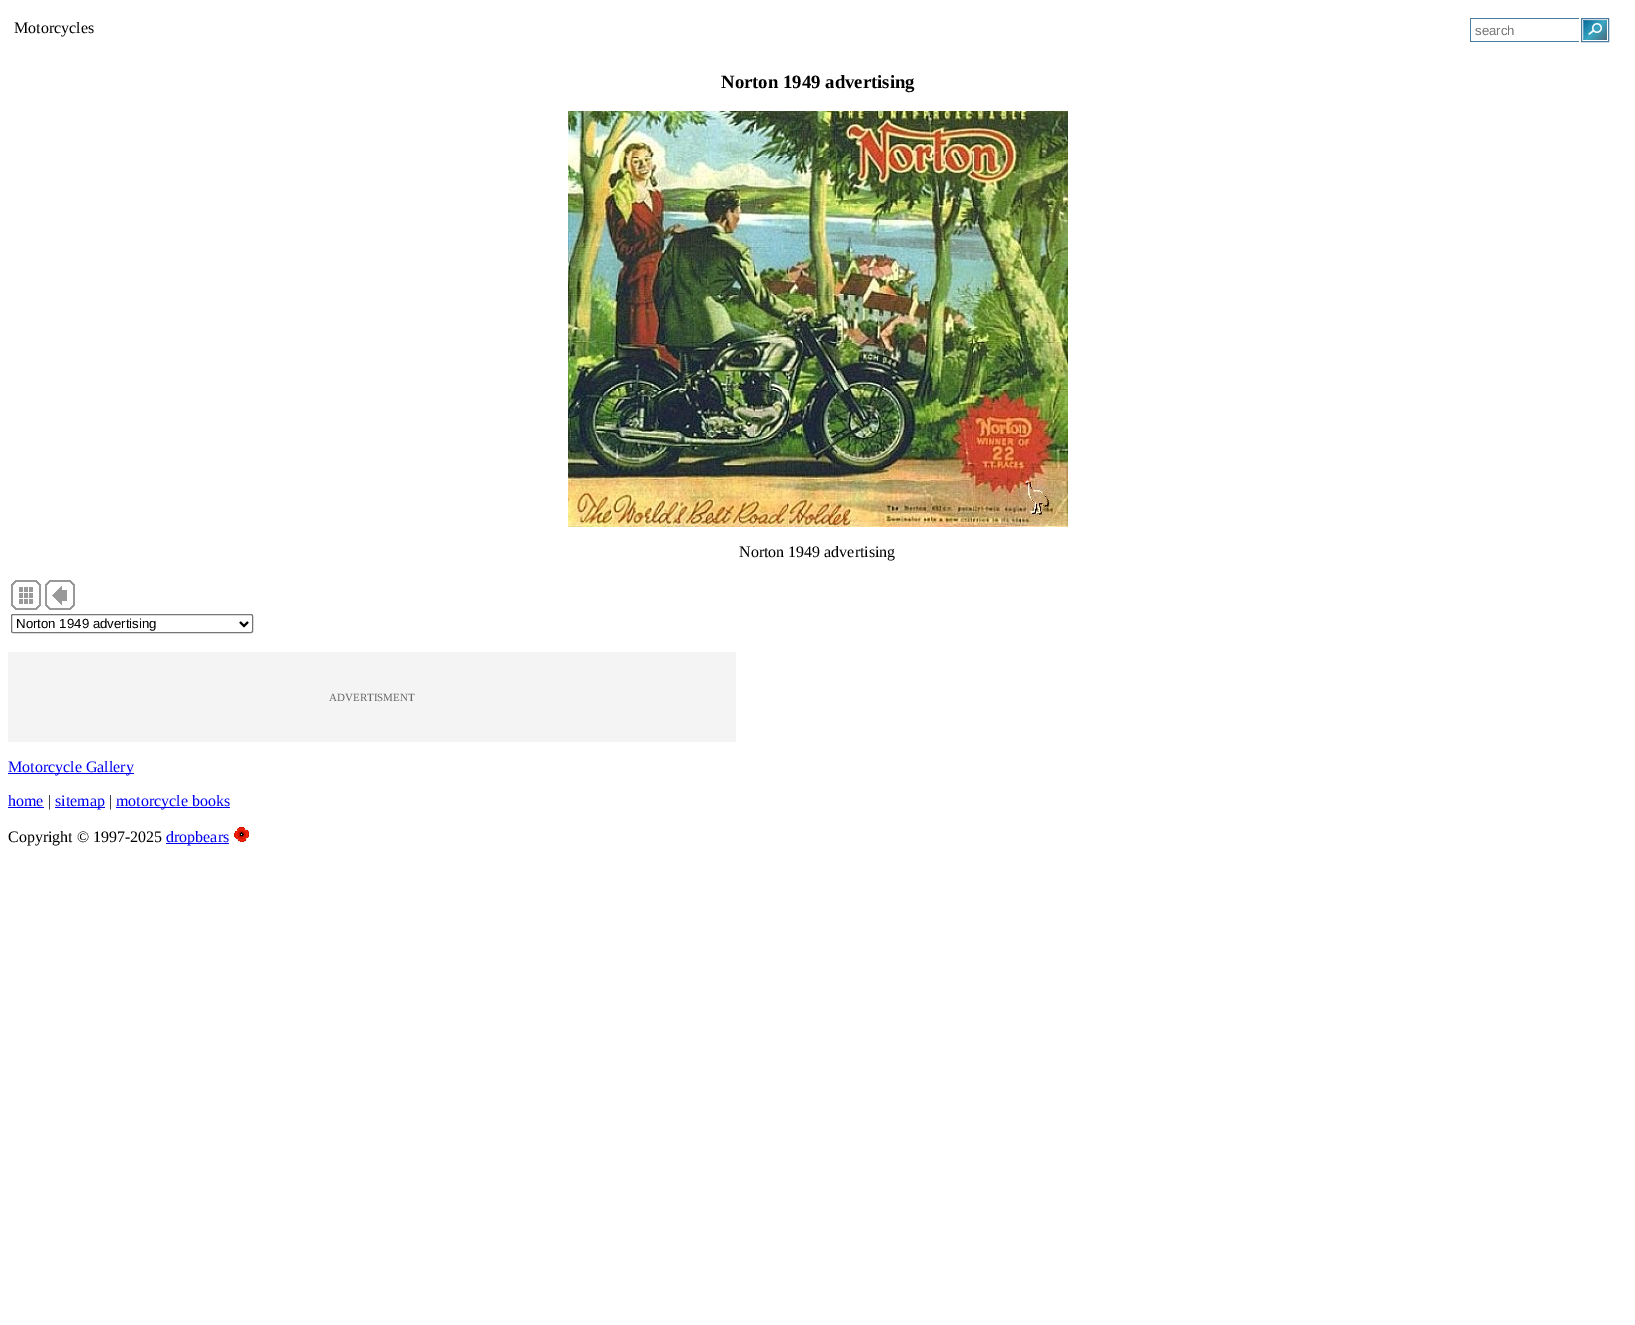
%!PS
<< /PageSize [1635 1325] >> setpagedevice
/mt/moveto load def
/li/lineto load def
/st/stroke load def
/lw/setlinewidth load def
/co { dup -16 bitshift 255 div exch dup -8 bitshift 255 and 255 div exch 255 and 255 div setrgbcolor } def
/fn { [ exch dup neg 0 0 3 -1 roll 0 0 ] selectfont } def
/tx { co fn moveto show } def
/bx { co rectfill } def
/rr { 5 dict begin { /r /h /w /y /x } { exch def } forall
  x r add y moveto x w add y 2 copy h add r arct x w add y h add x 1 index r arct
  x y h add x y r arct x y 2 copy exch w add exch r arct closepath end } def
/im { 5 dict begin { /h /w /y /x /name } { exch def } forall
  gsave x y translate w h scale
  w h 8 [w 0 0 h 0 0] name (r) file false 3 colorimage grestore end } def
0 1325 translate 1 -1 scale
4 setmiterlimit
0 0 1635 1325 16#FFFFFF bx
1470 18 109 1 16#4B7B9F bx
1470 41 109 1 16#4B7B9F bx
1470 18 1 24 16#4B7B9F bx
1581.5 18.5 27 23 rectstroke
(media/1.raw) 1583 20 24 20 im
(media/2.raw) 568 111 500 416 im
(media/3.raw) 11 580 30 30 im
(media/4.raw) 45 580 30 30 im
16#767676 co
11.5 614.5 241 18 1.5 rr st
16#000000 co
2 lw
240 622 mt 244 626 li 248 622 li st
8 652 728 90 16#F4F4F4 bx
8 773 126 1 16#0000EE bx
8 807 36 1 16#0000EE bx
55 807 50 1 16#0000EE bx
116 807 114 1 16#0000EE bx
166 843 63 1 16#0000EE bx
(media/5.raw) 234 826 15 16 im
(Motorcycles) 14 33 /LiberationSerif-Regular 16 16#000000 tx
(search) 1475 35 /LiberationSans-Regular 13.25 16#757575 tx
(Norton 1949 advertising) 721 88 /LiberationSerif-Bold 18.75 16#000000 tx
(Norton 1949 advertising) 739 557 /LiberationSerif-Regular 16 16#000000 tx
(Norton 1949 advertising) 16 628 /LiberationSans-Regular 13.25 16#000000 tx
(ADVERTISMENT) 329 701 /LiberationSerif-Regular 11 16#666666 tx
(Motorcycle Gallery) 8 772 /LiberationSerif-Regular 16 16#0000EE tx
(home) 8 806 /LiberationSerif-Regular 16 16#0000EE tx
(|) 48 806 /LiberationSerif-Regular 16 16#000000 tx
(sitemap) 55 806 /LiberationSerif-Regular 16 16#0000EE tx
(|) 109 806 /LiberationSerif-Regular 16 16#000000 tx
(motorcycle books) 116 806 /LiberationSerif-Regular 16 16#0000EE tx
(Copyright © 1997-2025) 8 842 /LiberationSerif-Regular 16 16#000000 tx
(dropbears) 166 842 /LiberationSerif-Regular 16 16#0000EE tx
showpage
